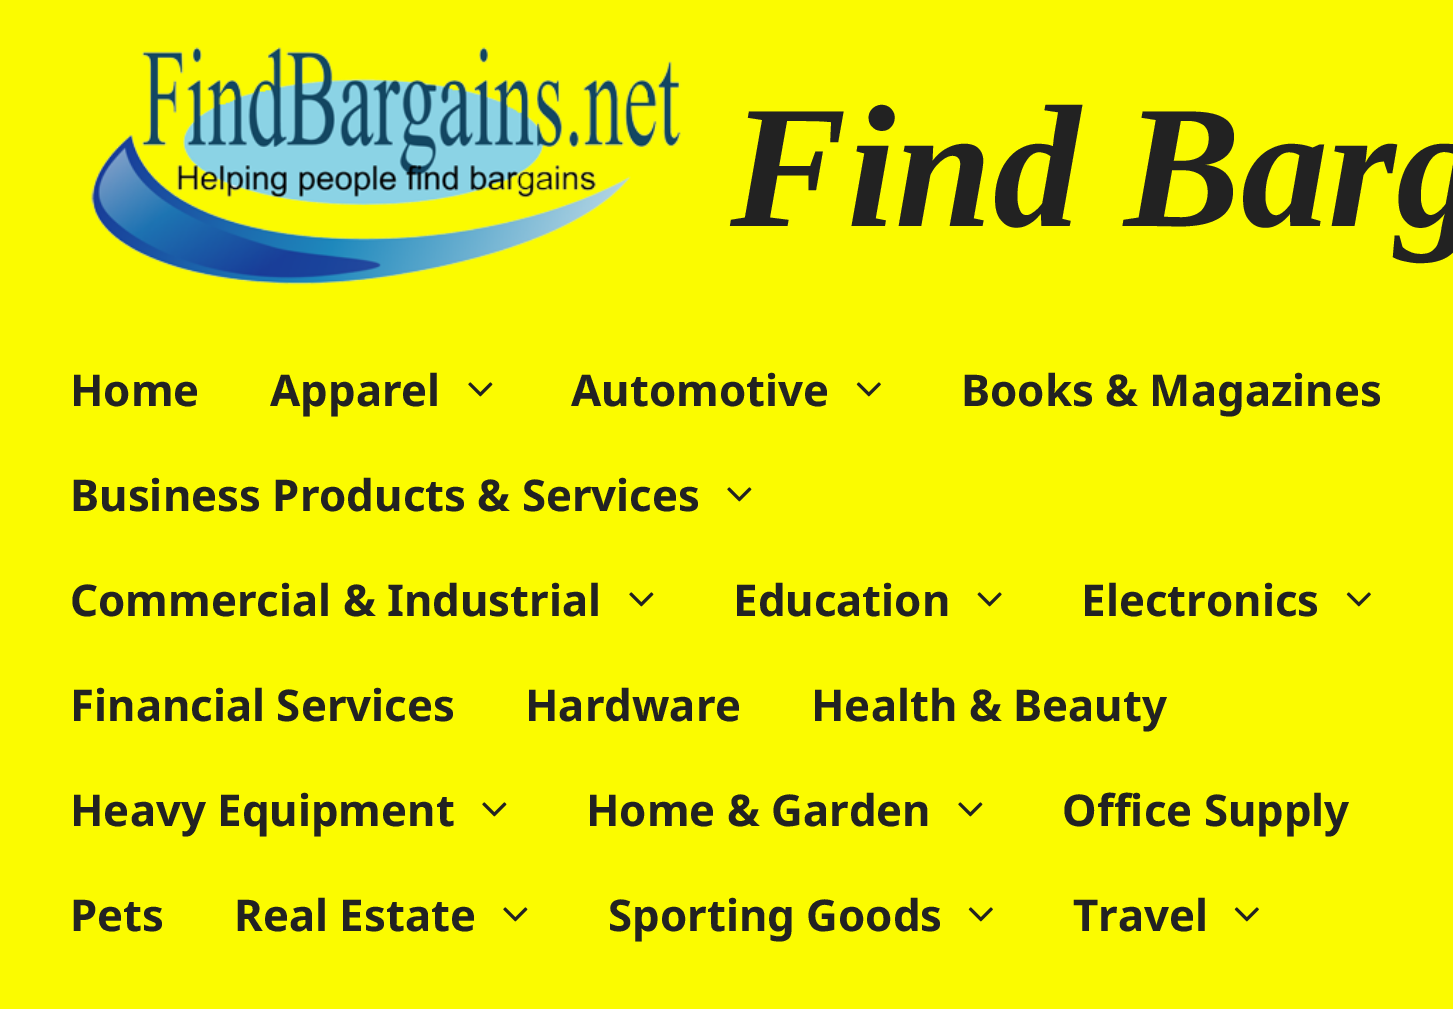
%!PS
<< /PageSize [1453 1009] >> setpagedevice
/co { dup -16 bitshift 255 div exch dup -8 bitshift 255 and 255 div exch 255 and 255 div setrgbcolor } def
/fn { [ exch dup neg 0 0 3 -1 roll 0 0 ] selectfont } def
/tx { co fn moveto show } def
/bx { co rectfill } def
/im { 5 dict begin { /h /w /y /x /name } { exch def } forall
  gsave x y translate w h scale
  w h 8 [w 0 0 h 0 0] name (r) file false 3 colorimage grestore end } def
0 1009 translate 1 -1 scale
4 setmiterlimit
0 0 1453 1009 16#FBFB00 bx
(media/1.raw) 91 47 590 238 im
(media/2.raw) 468 382 25 15 im
(media/3.raw) 856 382 25 15 im
(media/2.raw) 727 487 25 15 im
(media/2.raw) 629 592 25 15 im
(media/4.raw) 977 592 25 15 im
(media/3.raw) 1346 592 25 15 im
(media/2.raw) 482 802 25 15 im
(media/2.raw) 958 802 25 15 im
(media/2.raw) 503 907 25 15 im
(media/3.raw) 968 907 25 15 im
(media/3.raw) 1234 907 25 15 im
(Find Barg) 730 226 /LiberationSerif-BoldItalic 175 16#222222 tx
(Home) 70 406 /NotoSans-Bold 43.75 16#222222 tx
(Apparel) 270 406 /NotoSans-Bold 43.75 16#222222 tx
(Automotive) 571 406 /NotoSans-Bold 43.75 16#222222 tx
(Books & Magazines) 961 406 /NotoSans-Bold 43.75 16#222222 tx
(Business Products & Services) 70 511 /NotoSans-Bold 43.75 16#222222 tx
(Commercial & Industrial) 70 616 /NotoSans-Bold 43.75 16#222222 tx
(Education) 733 616 /NotoSans-Bold 43.75 16#222222 tx
(Electronics) 1081 616 /NotoSans-Bold 43.75 16#222222 tx
(Financial Services) 70 721 /NotoSans-Bold 43.75 16#222222 tx
(Hardware) 525 721 /NotoSans-Bold 43.75 16#222222 tx
(Health & Beauty) 811 721 /NotoSans-Bold 43.75 16#222222 tx
(Heavy Equipment) 70 826 /NotoSans-Bold 43.75 16#222222 tx
(Home & Garden) 586 826 /NotoSans-Bold 43.75 16#222222 tx
(Office Supply) 1062 826 /NotoSans-Bold 43.75 16#222222 tx
(Pets) 70 931 /NotoSans-Bold 43.75 16#222222 tx
(Real Estate) 234 931 /NotoSans-Bold 43.75 16#222222 tx
(Sporting Goods) 608 931 /NotoSans-Bold 43.75 16#222222 tx
(Travel) 1073 931 /NotoSans-Bold 43.75 16#222222 tx
showpage
